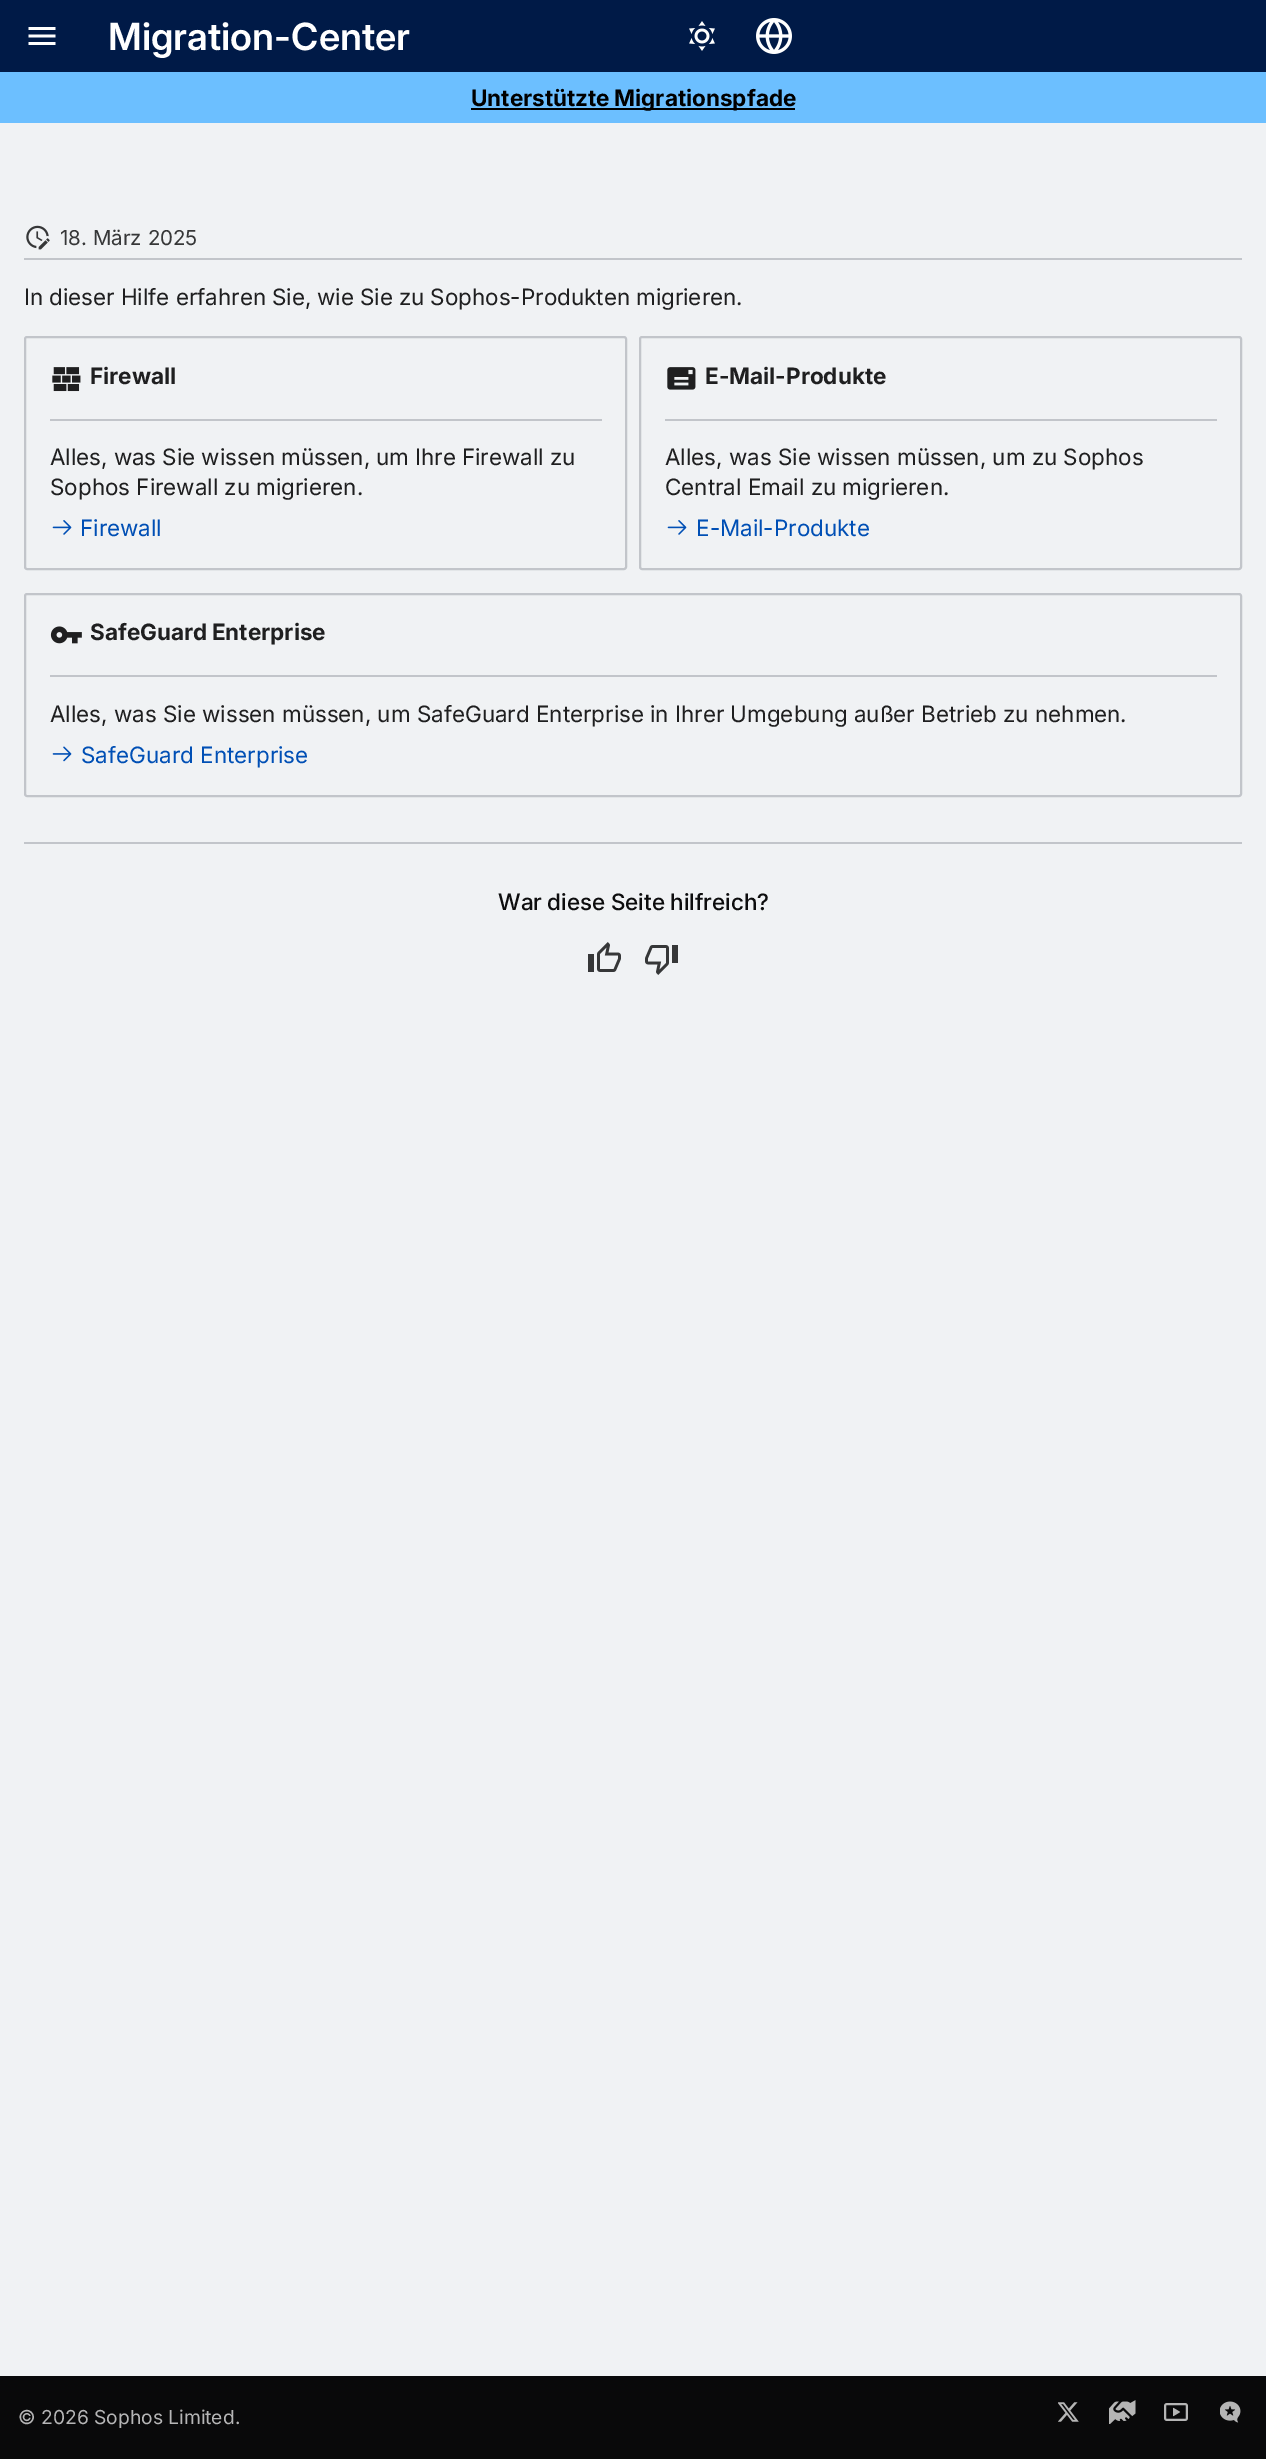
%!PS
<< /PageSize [1266 2459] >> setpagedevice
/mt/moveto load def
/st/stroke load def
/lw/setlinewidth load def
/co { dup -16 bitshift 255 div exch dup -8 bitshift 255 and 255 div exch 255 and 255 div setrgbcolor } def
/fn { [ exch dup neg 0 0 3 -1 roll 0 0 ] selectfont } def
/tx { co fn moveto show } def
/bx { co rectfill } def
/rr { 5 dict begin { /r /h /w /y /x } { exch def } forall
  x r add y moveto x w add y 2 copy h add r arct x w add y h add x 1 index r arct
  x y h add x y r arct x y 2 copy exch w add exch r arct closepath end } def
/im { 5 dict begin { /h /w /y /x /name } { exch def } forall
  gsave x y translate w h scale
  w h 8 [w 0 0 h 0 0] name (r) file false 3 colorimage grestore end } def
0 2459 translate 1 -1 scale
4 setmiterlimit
0 0 1266 2459 16#F0F2F4 bx
0 0 1266 72 16#001A47 bx
(media/1.raw) 28 27 28 18 im
(media/2.raw) 689 21 26 30 im
(media/3.raw) 756 18 36 36 im
0 72 1266 51 16#6CBFFF bx
471 108 324 2 16#000000 bx
24 258 1218 2 16#C2C5CA bx
(media/4.raw) 26 225 24 25 im
2 lw
25 337 601 232 2 rr st
(media/5.raw) 52 367 29 25 im
50 419 552 2 16#C2C5CA bx
(media/6.raw) 52 520 20 15 im
640 337 601 232 2 rr st
(media/7.raw) 667 367 29 23 im
665 419 552 2 16#C2C5CA bx
(media/6.raw) 667 520 20 15 im
25 594 1216 202 2 rr st
(media/8.raw) 50 626 32 18 im
50 675 1167 2 16#C2C5CA bx
(media/9.raw) 52 746 20 16 im
24 842 1218 2 16#C2C5CA bx
(media/10.raw) 588 942 33 30 im
(media/11.raw) 645 945 33 30 im
0 2376 1266 83 16#09090A bx
(media/12.raw) 1058 2402 21 20 im
(media/13.raw) 1109 2400 27 24 im
(media/14.raw) 1164 2403 24 18 im
(media/15.raw) 1220 2401 21 22 im
(Migration-Center) 108 50 /Inter-SemiBold 37.5 16#FFFFFF tx
/Inter-Bold 22.5 fn
16#000000 co
471 106 mt -1 0 32 (Unterstützte Migrationspfade) widthshow
(18. März 2025) 60 245 /Inter-Regular 20.5 16#363738 tx
/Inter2-Regular 22.5 fn
16#1F1F20 co
24 305 mt -.25 0 32 (In dieser Hilfe erfahren Sie, wie Sie zu Sophos-Produkten migrieren.) widthshow
(Firewall) 90 384 /Inter-Bold 22.5 16#1F1F20 tx
/Inter2-Regular 22.5 fn
50 465 mt -.25 0 32 (Alles, was Sie wissen müssen, um Ihre Firewall zu) widthshow
(Sophos Firewall zu migrieren.) 50 495 /Inter2-Regular 22.5 16#1F1F20 tx
(Firewall) 80 536 /Inter2-Regular 22.5 16#004FB5 tx
(E-Mail-Produkte) 705 384 /Inter-Bold 22.5 16#1F1F20 tx
(Alles, was Sie wissen müssen, um zu Sophos) 665 465 /Inter2-Regular 22.5 16#1F1F20 tx
(Central Email zu migrieren.) 665 495 /Inter2-Regular 22.5 16#1F1F20 tx
(E-Mail-Produkte) 696 536 /Inter2-Regular 22.5 16#004FB5 tx
/Inter-Bold 22.5 fn
16#1F1F20 co
90 640 mt -1 0 32 (SafeGuard Enterprise) widthshow
(Alles, was Sie wissen müssen, um SafeGuard Enterprise in Ihrer Umgebung außer Betrieb zu nehmen.) 50 722 /Inter2-Regular 22.5 16#1F1F20 tx
(SafeGuard Enterprise) 81 763 /Inter2-Regular 22.5 16#004FB5 tx
/Inter-Medium 22.5 fn
16#0D0D0E co
498 910 mt -.5 0 32 (War diese Seite hilfreich?) widthshow
(© 2026 Sophos Limited.) 18 2424 /Inter-Regular 19.25 16#B5B5B6 tx
showpage
